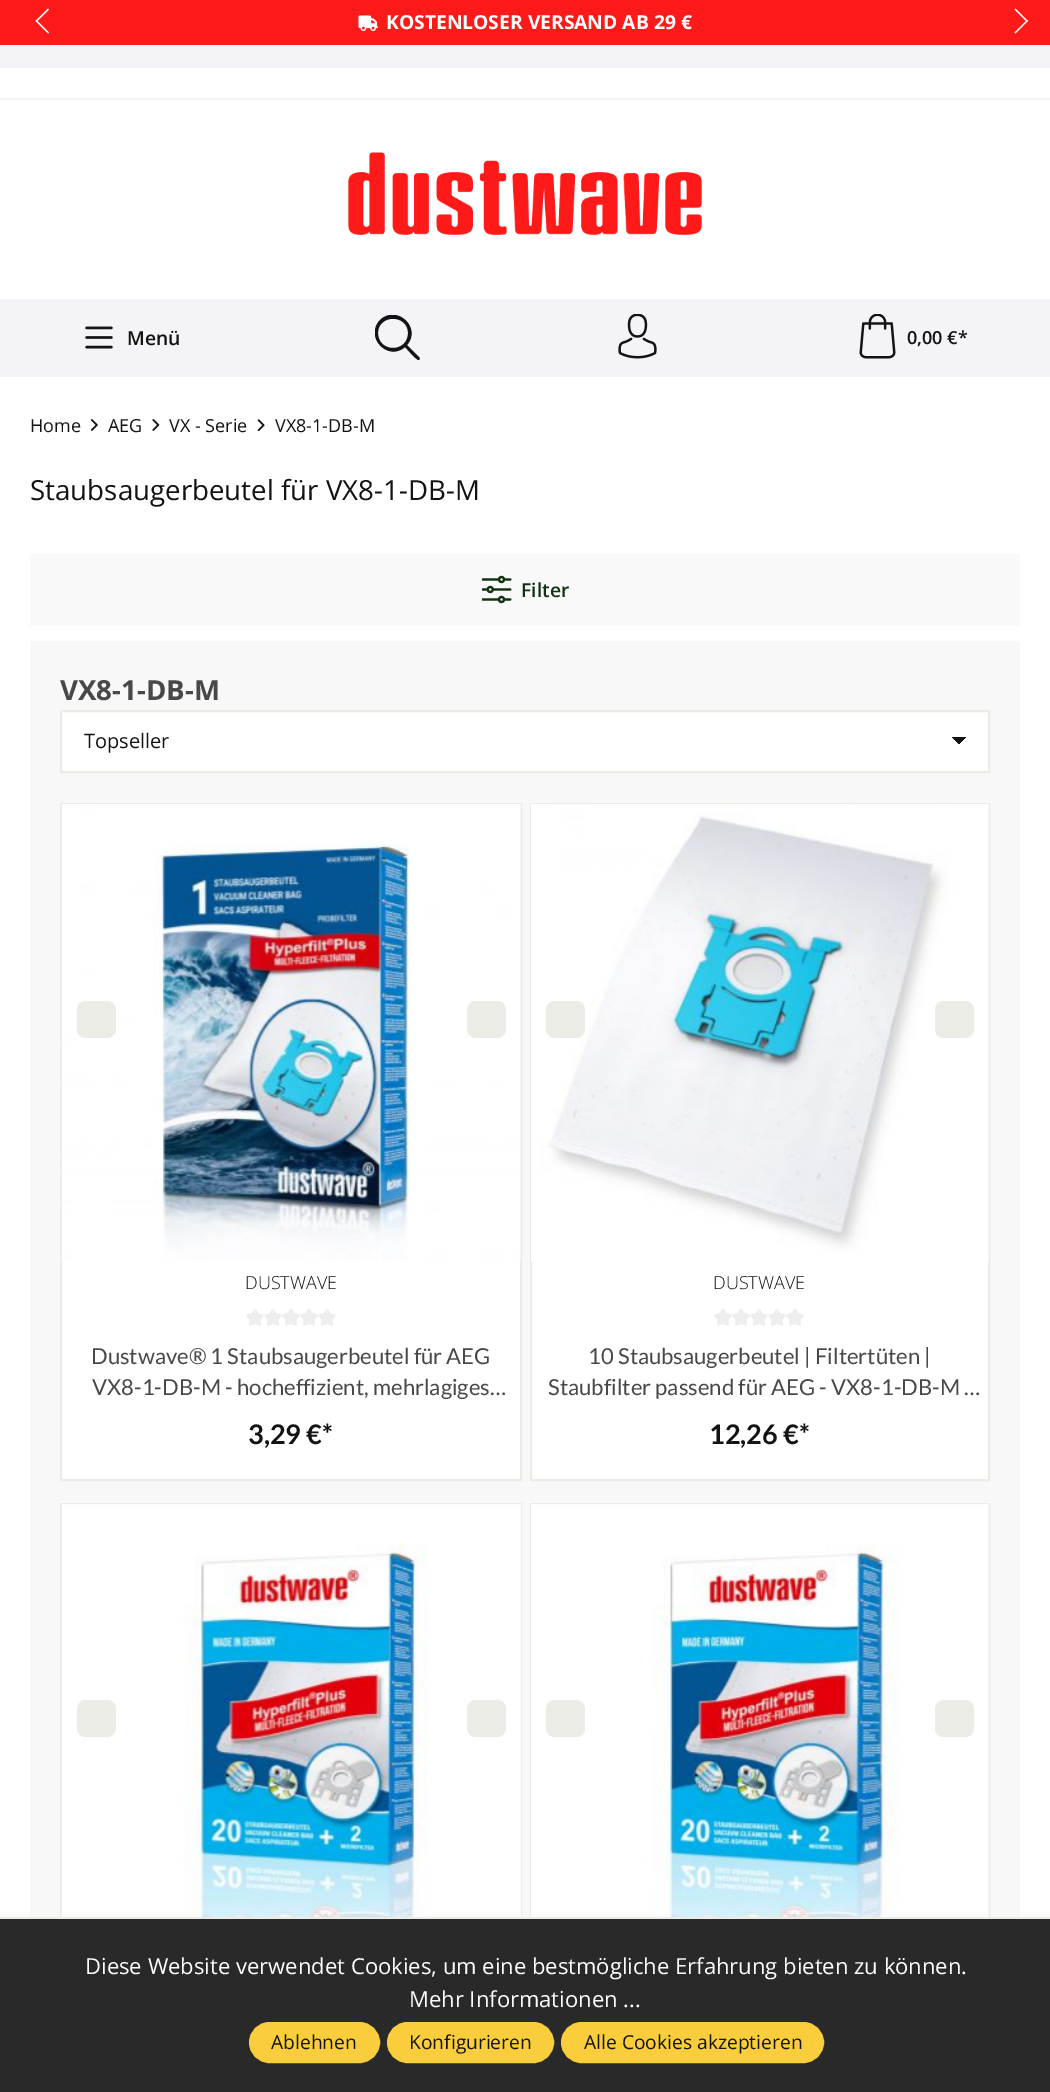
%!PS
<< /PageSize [1050 2092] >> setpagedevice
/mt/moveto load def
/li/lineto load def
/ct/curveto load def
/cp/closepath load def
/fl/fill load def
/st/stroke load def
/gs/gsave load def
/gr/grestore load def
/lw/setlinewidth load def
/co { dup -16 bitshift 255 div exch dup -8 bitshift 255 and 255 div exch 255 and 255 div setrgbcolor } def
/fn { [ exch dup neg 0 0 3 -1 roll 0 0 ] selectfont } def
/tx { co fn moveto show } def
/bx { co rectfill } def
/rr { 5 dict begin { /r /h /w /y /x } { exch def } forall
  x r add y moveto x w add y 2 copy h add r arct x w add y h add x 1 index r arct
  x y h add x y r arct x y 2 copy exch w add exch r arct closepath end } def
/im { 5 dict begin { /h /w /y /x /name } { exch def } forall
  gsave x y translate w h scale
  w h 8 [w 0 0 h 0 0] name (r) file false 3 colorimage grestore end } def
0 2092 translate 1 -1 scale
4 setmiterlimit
0 0 1050 2092 16#FFFFFF bx
0 0 1050 45 16#FF1A1A bx
16#FFFFFF co
49 32.5 mt 48 33.5 li 35.5 21 li 36.5 20 li cp fl
49 9.5 mt 36.5 22 li 35.5 21 li 48 8.5 li cp fl
1014.5 9.5 mt 1015.5 8.5 li 1028 21 li 1027 22 li cp fl
1014.5 32.5 mt 1027 20 li 1028 21 li 1015.5 33.5 li cp fl
(media/1.raw) 358 15 20 16 im
0 45 1050 23 16#F4F3F7 bx
0 98 1050 2 16#F4F3F7 bx
(media/2.raw) 348 152 354 83 im
0 299 1050 78 16#F4F3F7 bx
(media/3.raw) 85 326 28 23 im
gs
375 315 45 45 rectclip
16#131313 co
419 357 mt 407 345 li 422 328 397 304 380 320 ct 364 337 388 362 405 347 ct 407 349 417 361 419 360 ct 420 359 420 358 419 357 ct cp 378 333 mt 378 314 408 314 408 333 ct 408 353 378 353 378 333 ct cp fl
gr
(media/4.raw) 618 314 39 45 im
(media/5.raw) 859 314 37 45 im
(media/6.raw) 90 419 8 12 im
(media/7.raw) 152 419 8 12 im
(media/8.raw) 257 419 8 12 im
30 554 990 72 16#F9F9F9 bx
(media/9.raw) 482 575 30 29 im
30 641 990 1276 16#F8F8F8 bx
62 712 926 59 16#FFFFFF bx
gs 959 737 mt 966 737 li 966 744 li 959 744 li cp clip newpath
<< /ShadingType 2 /ColorSpace /DeviceRGB /Coords [959 737 966 745] /Extend [true true] /Function << /FunctionType 3 /Domain [0 1] /Functions [<< /FunctionType 2 /Domain [0 1] /C0 [.075 .075 .075] /C1 [.075 .075 .075] /N 1 >> << /FunctionType 2 /Domain [0 1] /C0 [1 1 1] /C1 [1 1 1] /N 1 >>] /Bounds [.5] /Encode [0 1 0 1] >> >> shfill gr
gs 951 737 mt 959 737 li 959 744 li 951 744 li cp clip newpath
<< /ShadingType 2 /ColorSpace /DeviceRGB /Coords [951 745 959 737] /Extend [true true] /Function << /FunctionType 3 /Domain [0 1] /Functions [<< /FunctionType 2 /Domain [0 1] /C0 [1 1 1] /C1 [1 1 1] /N 1 >> << /FunctionType 2 /Domain [0 1] /C0 [.075 .075 .075] /C1 [.075 .075 .075] /N 1 >>] /Bounds [.5] /Encode [0 1 0 1] >> >> shfill gr
16#ECECE7 co
2 lw
61 711 928 61 rectstroke
62 1261 458 218 16#FFFFFF bx
16#ECECE7 co
61 804 460 676 rectstroke
(media/10.raw) 61 804 460 457 im
77 1001 39 37 9 rr fl
(media/11.raw) 161 804 360 458 im
467 1001 39 37 9 rr fl
(media/12.raw) 246 1309 18 17 im
(media/12.raw) 264 1309 18 17 im
(media/12.raw) 282 1309 18 17 im
(media/12.raw) 300 1309 18 17 im
(media/12.raw) 318 1309 18 17 im
532 1261 456 218 16#FFFFFF bx
16#ECECE7 co
531 804 458 676 rectstroke
(media/13.raw) 531 804 458 458 im
(media/14.raw) 531 804 458 458 im
546 1001 39 37 9 rr fl
935 1001 39 37 9 rr fl
(media/12.raw) 714 1309 18 17 im
(media/12.raw) 732 1309 18 17 im
(media/12.raw) 750 1309 18 17 im
(media/12.raw) 768 1309 18 17 im
(media/12.raw) 786 1309 18 17 im
61 1504 460 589 rectstroke
(media/15.raw) 61 1504 460 413 im
(media/16.raw) 62 1504 459 413 im
(media/17.raw) 520 1504 1 413 im
77 1700 39 37 9 rr fl
467 1700 39 37 9 rr fl
531 1504 458 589 rectstroke
(media/18.raw) 531 1504 458 413 im
(media/19.raw) 531 1504 458 413 im
546 1700 39 37 9 rr fl
935 1700 39 37 9 rr fl
0 1919 1050 173 16#292929 bx
0 1917 1050 2 16#ECECE7 bx
16#F9CD3B co
250 2023 129 39 19.5 rr gs fl gr
st
388 2023 165 39 19.5 rr gs fl gr
st
562 2023 261 39 19.5 rr gs fl gr
st
(KOSTENLOSER VERSAND AB 29 €) 386 29 /OpenSans-Bold 19.25 16#FFFFFF tx
(Menü) 127 345 /OpenSans-SemiBold 19.25 16#131313 tx
(0,00 €*) 907 344 /OpenSans-SemiBold 18 16#131313 tx
(Home) 30 432 /OpenSans-Regular 18 16#131313 tx
(AEG) 108 432 /OpenSans-Regular 18 16#131313 tx
(VX - Serie) 169 432 /OpenSans-Regular 18 16#131313 tx
(VX8-1-DB-M) 275 432 /OpenSans-Regular 18 16#131313 tx
(Staubsaugerbeutel für VX8-1-DB-M) 30 500 /OpenSans-Regular 27.7 16#131313 tx
(Filter) 521 597 /OpenSans-SemiBold 19.25 16#113311 tx
(VX8-1-DB-M) 60 700 /OpenSans-Bold 27.7 16#484848 tx
(Topseller) 84 748 /OpenSans-Regular 20 16#131313 tx
(DUSTWAVE) 245 1289 /OpenSans-Light 18 16#131313 tx
(Dustwave® 1 Staubsaugerbeutel für AEG) 91 1364 /Lato-Regular 22.05 16#484848 tx
(VX8-1-DB-M - hocheffizient, mehrlagiges…) 92 1395 /Lato-Regular 22.05 16#484848 tx
(3,29 €*) 248 1444 /Lato-Bold 27 16#131313 tx
(DUSTWAVE) 713 1289 /OpenSans-Light 18 16#131313 tx
(10 Staubsaugerbeutel | Filtertüten |) 588 1364 /Lato-Regular 22.05 16#484848 tx
(Staubfilter passend für AEG - VX8-1-DB-M …) 548 1395 /Lato-Regular 22.05 16#484848 tx
(12,26 €*) 709 1444 /Lato-Bold 27 16#131313 tx
(Diese Website verwendet Cookies, um eine bestmögliche Erfahrung bieten zu können.) 85 1974 /OpenSans-Regular 22.05 16#FFFFFF tx
(Mehr Informationen ...) 409 2007 /OpenSans-Regular 22.05 16#FFFFFF tx
(Ablehnen) 271 2049 /OpenSans-Regular 19.25 16#131313 tx
(Konfigurieren) 409 2049 /OpenSans-Regular 19.25 16#131313 tx
(Alle Cookies akzeptieren) 584 2049 /OpenSans-Regular 19.25 16#131313 tx
showpage
